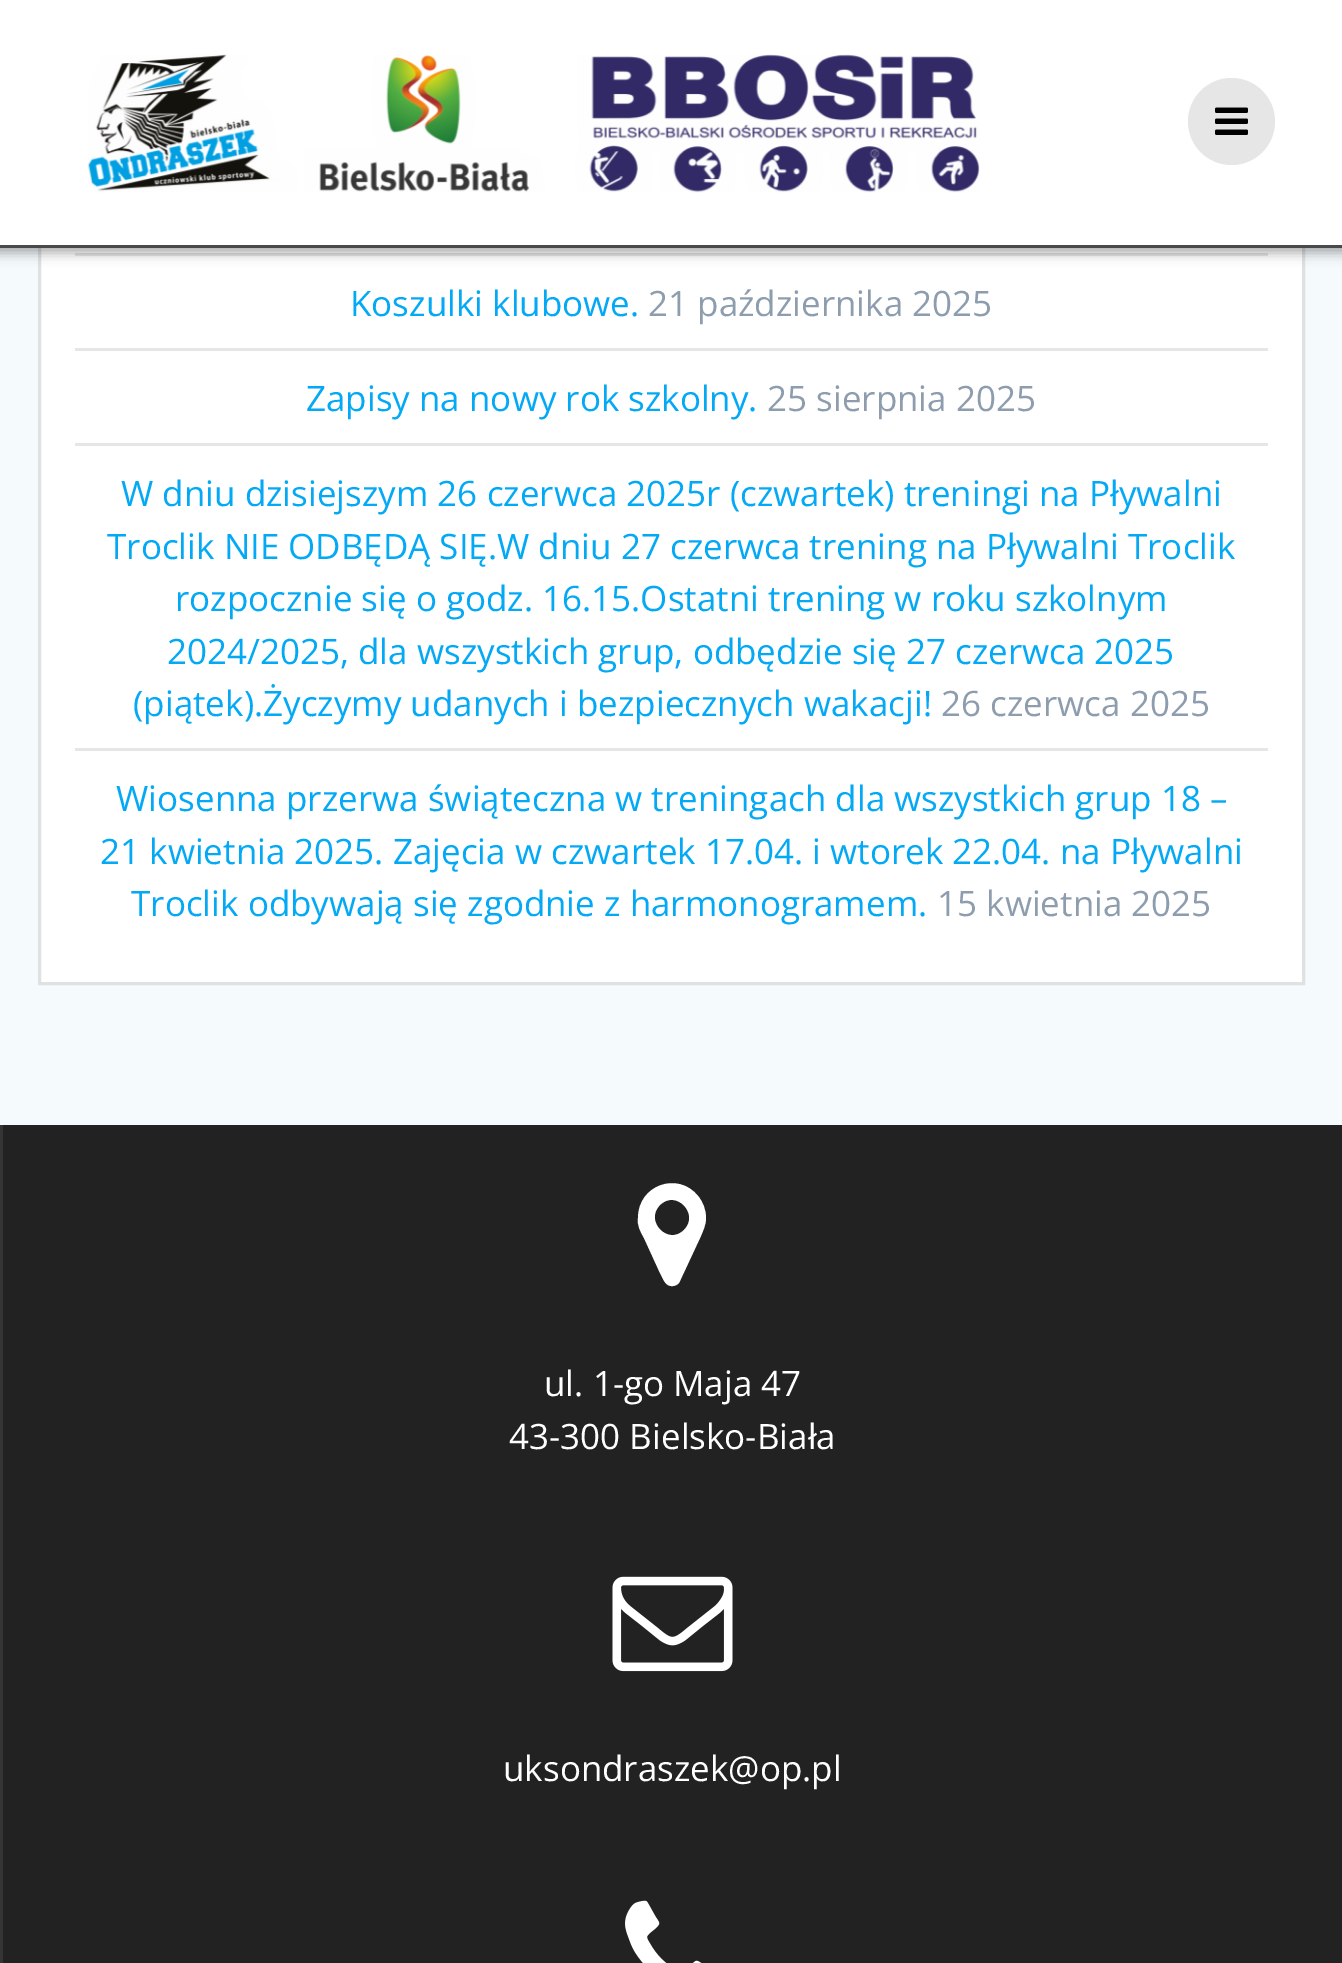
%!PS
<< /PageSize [1342 1963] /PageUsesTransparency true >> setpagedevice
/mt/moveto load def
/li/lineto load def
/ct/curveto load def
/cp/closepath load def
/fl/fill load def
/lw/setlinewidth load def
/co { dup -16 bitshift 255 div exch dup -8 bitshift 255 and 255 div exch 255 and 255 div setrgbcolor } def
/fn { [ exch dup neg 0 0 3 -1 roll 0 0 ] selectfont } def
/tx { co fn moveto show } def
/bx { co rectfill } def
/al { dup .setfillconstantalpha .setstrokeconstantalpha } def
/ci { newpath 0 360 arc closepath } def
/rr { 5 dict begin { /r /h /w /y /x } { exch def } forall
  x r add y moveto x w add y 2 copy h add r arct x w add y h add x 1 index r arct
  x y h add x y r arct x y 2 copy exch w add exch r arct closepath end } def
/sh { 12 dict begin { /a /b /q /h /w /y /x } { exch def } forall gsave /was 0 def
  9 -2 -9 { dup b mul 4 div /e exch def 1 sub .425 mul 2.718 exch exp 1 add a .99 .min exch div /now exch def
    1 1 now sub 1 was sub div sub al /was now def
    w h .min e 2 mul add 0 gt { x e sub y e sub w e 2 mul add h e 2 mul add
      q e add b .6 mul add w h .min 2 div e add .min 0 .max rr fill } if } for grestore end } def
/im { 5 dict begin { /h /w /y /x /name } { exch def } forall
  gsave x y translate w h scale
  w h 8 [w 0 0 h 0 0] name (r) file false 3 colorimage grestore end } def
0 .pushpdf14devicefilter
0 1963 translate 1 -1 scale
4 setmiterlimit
0 0 1342 1963 16#222222 bx
0 248 1342 877 16#F5FAFD bx
41 248 1261 734 16#FFFFFF bx
16#E0E1E1 co
3 lw
39.5 -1.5 1264 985 rectstroke
75 253 1193 3 16#E6E6E6 bx
16#000000 co
-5 -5 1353 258 0 6 .33 sh
0 0 1342 245 16#FFFFFF bx
0 245 1342 3 16#494949 bx
(media/1.raw) 88 54 892 139 im
16#E6E6E6 co
1231.5 121.5 43.5 ci fl
(media/2.raw) 1215 107 33 28 im
75 348 1193 3 16#E6E6E6 bx
75 443 1193 3 16#E6E6E6 bx
75 748 1193 3 16#E6E6E6 bx
0 1125 3 838 16#353535 bx
16#FFFFFF co
684 1230 mt 700 1214 676 1189 660 1205 ct 644 1221 668 1246 684 1230 ct cp 706 1218 mt 706 1225 703 1231 700 1238 ct 679 1283 li 677 1285 675 1286 673 1286 ct 665 1287 663 1278 660 1273 ct 644 1238 li 640 1231 637 1225 638 1218 ct 638 1185 678 1171 698 1196 ct 703 1202 706 1210 706 1218 ct cp fl
(media/3.raw) 612 1576 121 96 im
(media/4.raw) 625 1900 77 63 im
(Koszulki klubowe.) 350 316 /OpenSans-Regular 35 16#03A9F4 tx
(21 października 2025) 648 316 /OpenSans-Regular 35 16#8E9DAE tx
(Zapisy na nowy rok szkolny.) 306 411 /OpenSans-Regular 35 16#03A9F4 tx
(25 sierpnia 2025) 767 411 /OpenSans-Regular 35 16#8E9DAE tx
(W dniu dzisiejszym 26 czerwca 2025r \(czwartek\) treningi na Pływalni) 121 506 /OpenSans-Regular 35 16#03A9F4 tx
(Troclik NIE ODBĘDĄ SIĘ.W dniu 27 czerwca trening na Pływalni Troclik) 107 559 /OpenSans-Regular 35 16#03A9F4 tx
(rozpocznie się o godz. 16.15.Ostatni trening w roku szkolnym) 175 611 /OpenSans-Regular 35 16#03A9F4 tx
(2024/2025, dla wszystkich grup, odbędzie się 27 czerwca 2025) 167 664 /OpenSans-Regular 35 16#03A9F4 tx
(\(piątek\).Życzymy udanych i bezpiecznych wakacji!) 133 716 /OpenSans-Regular 35 16#03A9F4 tx
(26 czerwca 2025) 941 716 /OpenSans-Regular 35 16#8E9DAE tx
(Wiosenna przerwa świąteczna w treningach dla wszystkich grup 18 –) 116 811 /OpenSans-Regular 35 16#03A9F4 tx
(21 kwietnia 2025. Zajęcia w czwartek 17.04. i wtorek 22.04. na Pływalni) 100 864 /OpenSans-Regular 35 16#03A9F4 tx
(Troclik odbywają się zgodnie z harmonogramem.) 131 916 /OpenSans-Regular 35 16#03A9F4 tx
(15 kwietnia 2025) 937 916 /OpenSans-Regular 35 16#8E9DAE tx
(ul. 1-go Maja 47) 544 1396 /OpenSans-Regular 35 16#FFFFFF tx
(43-300 Bielsko-Biała) 509 1449 /OpenSans-Regular 35 16#FFFFFF tx
(uksondraszek@op.pl) 503 1781 /OpenSans-Regular 35 16#FFFFFF tx
.poppdf14devicefilter showpage
